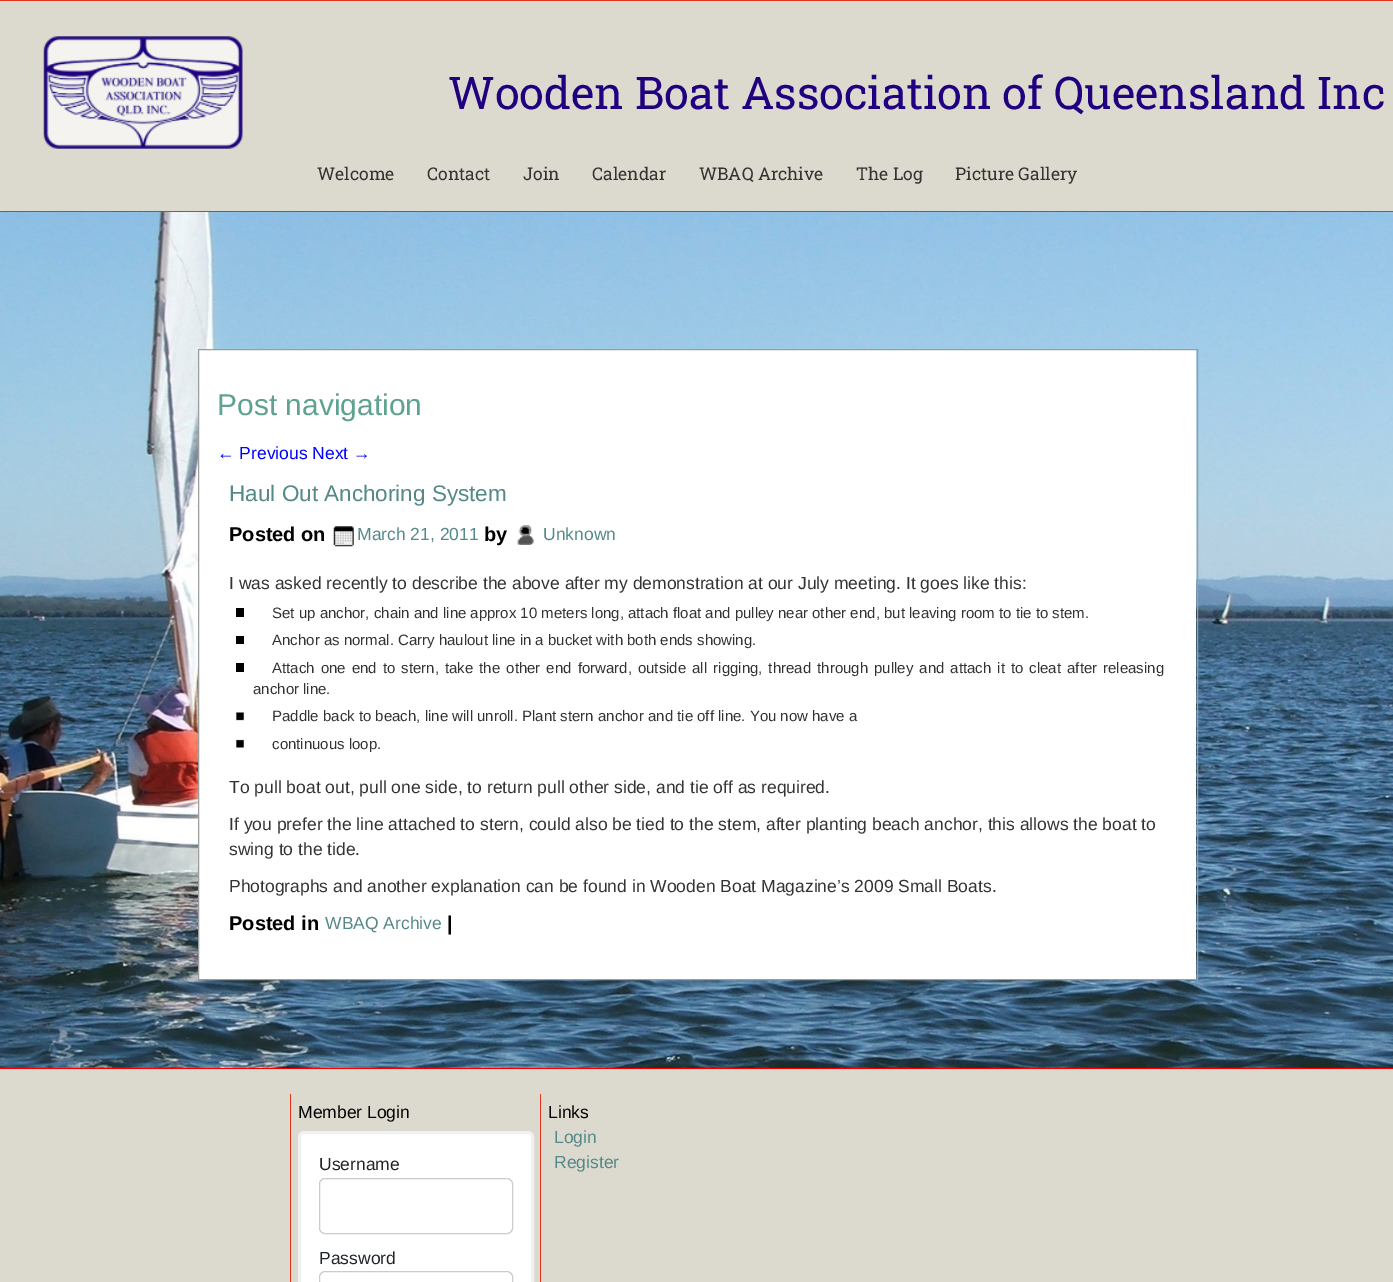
%!PS
<< /PageSize [1393 1282] >> setpagedevice
/mt/moveto load def
/fl/fill load def
/st/stroke load def
/gs/gsave load def
/gr/grestore load def
/lw/setlinewidth load def
/co { dup -16 bitshift 255 div exch dup -8 bitshift 255 and 255 div exch 255 and 255 div setrgbcolor } def
/fn { [ exch dup neg 0 0 3 -1 roll 0 0 ] selectfont } def
/tx { co fn moveto show } def
/bx { co rectfill } def
/rr { 5 dict begin { /r /h /w /y /x } { exch def } forall
  x r add y moveto x w add y 2 copy h add r arct x w add y h add x 1 index r arct
  x y h add x y r arct x y 2 copy exch w add exch r arct closepath end } def
/im { 5 dict begin { /h /w /y /x /name } { exch def } forall
  gsave x y translate w h scale
  w h 8 [w 0 0 h 0 0] name (r) file false 3 colorimage grestore end } def
0 1282 translate 1 -1 scale
4 setmiterlimit
0 0 1393 1282 16#FFFFFF bx
(media/1.raw) 0 212 1393 856 im
0 1 1393 210 16#DCDACE bx
0 0 1393 1 16#E2341D bx
(media/2.raw) 43 36 200 113 im
0 211 1393 1 16#E2341D bx
199 350 997 629 16#FFFFFF bx
16#9D9D9D co
198.5 349.5 999 630 rectstroke
(media/3.raw) 333 526 21 21 im
(media/4.raw) 517 525 17 20 im
236 608 8 9 16#000000 bx
236 636 8 8 16#000000 bx
236 663 8 9 16#000000 bx
(media/5.raw) 236 712 8 9 im
(media/6.raw) 236 739 8 9 im
0 1069 1393 213 16#DCDACE bx
0 1068 1393 1 16#F30000 bx
290 1094 1 188 16#E2341D bx
16#FFFFFF co
299.5 1132.5 233 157 4.5 rr gs fl gr
16#F1F1F1 co
3 lw
st
16#CCCCCC co
1 lw
319.5 1178.5 193 55 5.5 rr st
319.5 1271.5 193 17 5.5 rr st
540 1094 1 188 16#E2341D bx
(Wooden Boat Association of Queensland Inc) 448 109 /RobotoSlab-Regular 45 16#21007F tx
(Welcome) 317 180 /RobotoSlab-Regular 17.5 16#333333 tx
(Contact) 427 180 /RobotoSlab-Regular 17.5 16#333333 tx
(Join) 523 180 /RobotoSlab-Regular 17.5 16#333333 tx
(Calendar) 592 180 /RobotoSlab-Regular 17.5 16#333333 tx
(WBAQ Archive) 699 180 /RobotoSlab-Regular 17.5 16#333333 tx
(The Log) 856 180 /RobotoSlab-Regular 17.5 16#333333 tx
(Picture Gallery) 955 180 /RobotoSlab-Regular 17.5 16#333333 tx
(Post navigation) 217 415 /LiberationSans-Regular 30 16#5FA292 tx
(← Previous Next →) 217 459 /LiberationSans-Regular 17.5 16#0000FF tx
(Haul Out Anchoring System) 229 501 /LiberationSans-Regular 22.5 16#558988 tx
(Posted on) 229 541 /LiberationSans-Bold 20 16#000000 tx
(March 21, 2011) 357 540 /LiberationSans-Regular 17.5 16#558988 tx
(by) 484 541 /LiberationSans-Bold 20 16#000000 tx
(Unknown) 543 540 /LiberationSans-Regular 17.5 16#558988 tx
(I was asked recently to describe the above after my demonstration at our July meeting. It goes like this:) 229 589 /LiberationSans-Regular 17.5 16#333333 tx
(Set up anchor, chain and line approx 10 meters long, attach float and pulley near other end, but leaving room to tie to stem.) 272 618 /LiberationSans-Regular 15 16#333333 tx
(Anchor as normal. Carry haulout line in a bucket with both ends showing.) 272 645 /LiberationSans-Regular 15 16#333333 tx
272 673 mt 1.9 0 32 (Attach one end to stern, take the other end forward, outside all rigging, thread through pulley and attach it to cleat after releasing) widthshow
(anchor line.) 253 694 /LiberationSans-Regular 15 16#333333 tx
(Paddle back to beach, line will unroll. Plant stern anchor and tie off line. You now have a) 272 721 /LiberationSans-Regular 15 16#333333 tx
(continuous loop.) 272 749 /LiberationSans-Regular 15 16#333333 tx
(To pull boat out, pull one side, to return pull other side, and tie off as required.) 229 793 /LiberationSans-Regular 17.5 16#333333 tx
(If you prefer the line attached to stern, could also be tied to the stem, after planting beach anchor, this allows the boat to) 229 830 /LiberationSans-Regular 17.5 16#333333 tx
(swing to the tide.) 229 855 /LiberationSans-Regular 17.5 16#333333 tx
(Photographs and another explanation can be found in Wooden Boat Magazine’s 2009 Small Boats.) 229 892 /LiberationSans-Regular 17.5 16#333333 tx
(Posted in) 229 930 /LiberationSans-Bold 20 16#000000 tx
(WBAQ Archive) 325 929 /LiberationSans-Regular 17.5 16#558988 tx
(|) 447 930 /LiberationSans-Bold 20 16#000000 tx
(Member Login) 298 1118 /LiberationSans-Regular 17.5 16#000000 tx
(Username) 319 1170 /LiberationSans-Regular 17.5 16#212529 tx
(Password) 319 1264 /LiberationSans-Regular 17.5 16#212529 tx
(Links) 548 1118 /LiberationSans-Regular 17.5 16#000000 tx
(Login) 554 1143 /LiberationSans-Regular 17.5 16#558988 tx
(Register) 554 1168 /LiberationSans-Regular 17.5 16#558988 tx
showpage
